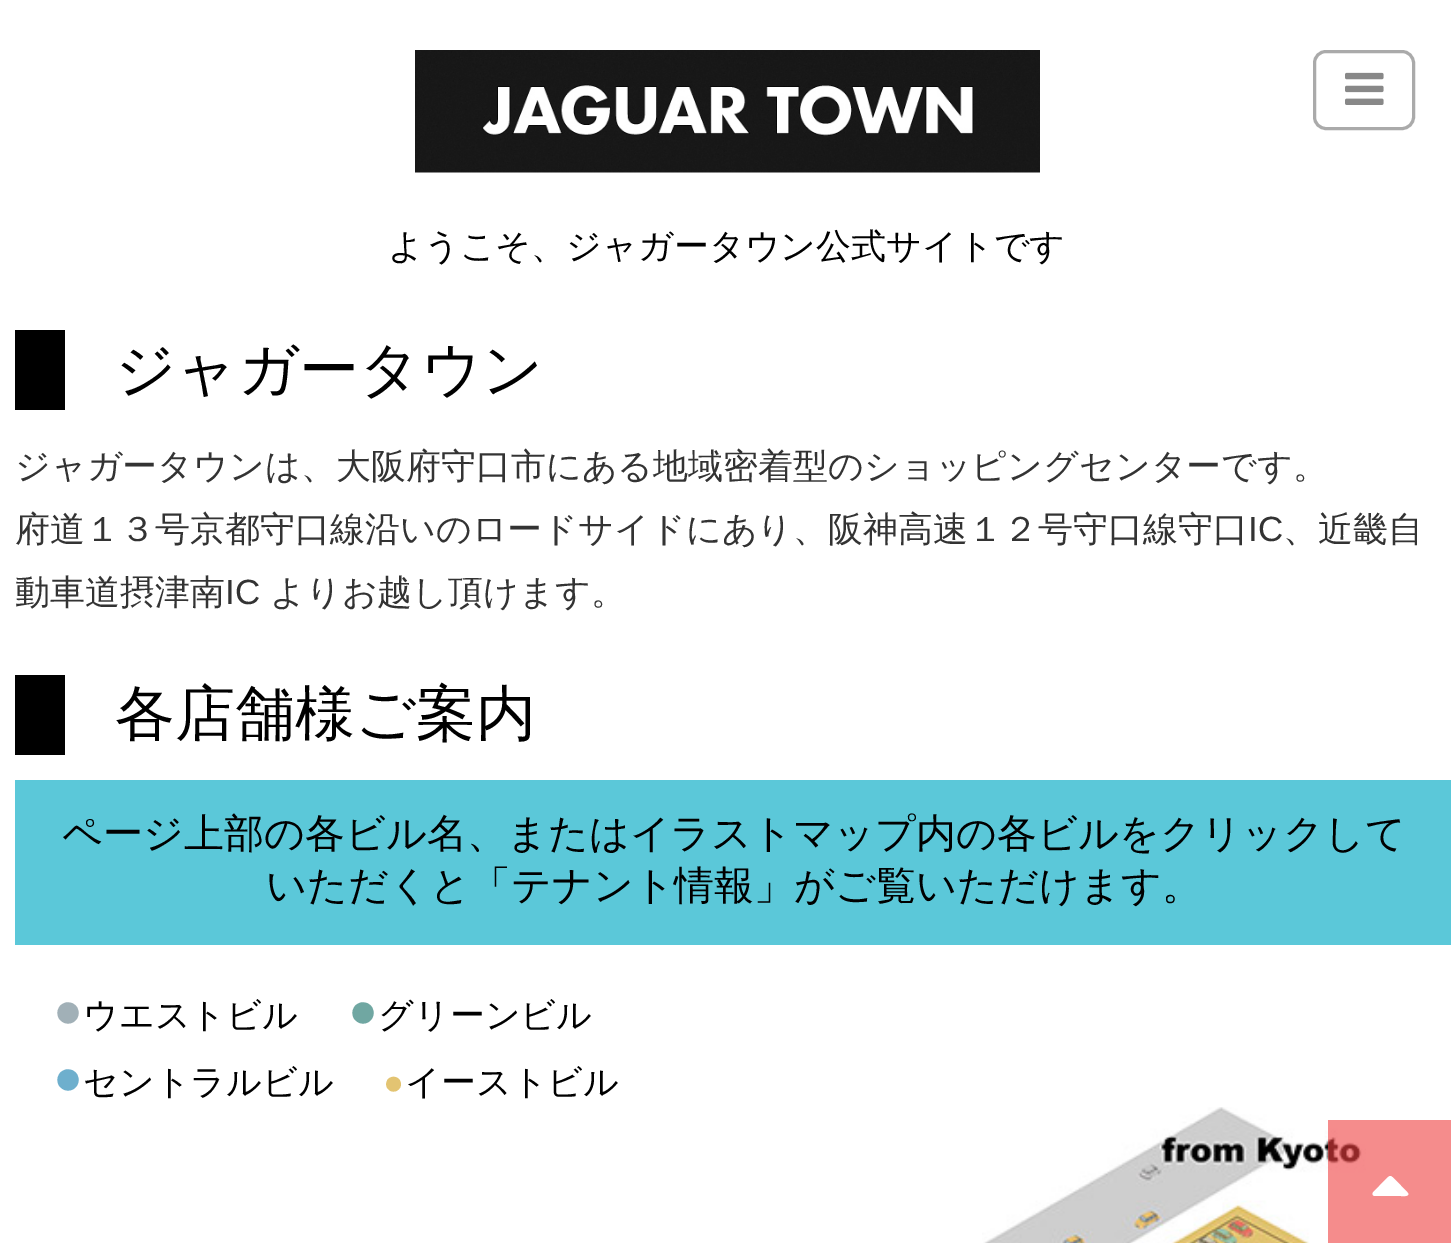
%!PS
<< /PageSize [1451 1243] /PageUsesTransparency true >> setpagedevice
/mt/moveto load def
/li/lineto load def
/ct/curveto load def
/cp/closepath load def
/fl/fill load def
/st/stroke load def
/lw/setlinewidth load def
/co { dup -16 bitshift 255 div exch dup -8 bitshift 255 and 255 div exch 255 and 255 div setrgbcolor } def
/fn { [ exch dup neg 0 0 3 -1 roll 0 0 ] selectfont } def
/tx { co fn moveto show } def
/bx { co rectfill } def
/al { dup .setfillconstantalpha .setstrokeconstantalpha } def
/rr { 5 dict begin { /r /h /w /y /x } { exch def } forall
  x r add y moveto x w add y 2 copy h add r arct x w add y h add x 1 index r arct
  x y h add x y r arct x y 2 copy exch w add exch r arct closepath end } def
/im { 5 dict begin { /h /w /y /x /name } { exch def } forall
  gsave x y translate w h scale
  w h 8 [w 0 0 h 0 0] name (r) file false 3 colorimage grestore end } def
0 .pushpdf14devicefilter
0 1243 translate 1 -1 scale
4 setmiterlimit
0 0 1451 1243 16#FFFFFF bx
16#AAAAAA co
3 lw
1314.5 51.5 99 77 11.5 rr st
(media/1.raw) 1345 72 39 33 im
(media/2.raw) 415 50 625 123 im
15 330 50 80 16#000000 bx
15 675 50 80 16#000000 bx
15 780 1436 165 16#5BC8D9 bx
(media/3.raw) 982 1107 384 136 im
0.6 al
1328 1120 123 123 16#EF3F40 bx
1 al
16#FFFFFF co
1407.5 1192.5 mt 1408 1193 li 1410 1197 1401.5 1196 1401 1196 ct 1374.5 1196 li 1372.5 1195.5 1372 1193.5 1373 1192.5 ct 1386 1179 li 1390.5 1175 1390 1175 1394.5 1179 ct cp fl
(ようこそ、ジャガータウン公式サイトです) 388 258 /WenQuanYiZenHei-Medium 35 16#000000 tx
(ジャガータウン) 115 390 /WenQuanYiZenHei-Medium 60 16#000000 tx
(ジャガータウンは、大阪府守口市にある地域密着型のショッピングセンターです。) 15 478 /WenQuanYiZenHei-Medium 35 16#333333 tx
(府道１３号京都守口線沿いのロードサイドにあり、阪神高速１２号守口線守口) 15 541 /WenQuanYiZenHei-Medium 35 16#333333 tx
(IC) 1248 541 /LiberationSans-Regular 35 16#333333 tx
(、近畿自) 1283 541 /WenQuanYiZenHei-Medium 35 16#333333 tx
(動車道摂津南) 15 604 /WenQuanYiZenHei-Medium 35 16#333333 tx
(IC) 225 604 /LiberationSans-Regular 35 16#333333 tx
(よりお越し頂けます。) 270 604 /WenQuanYiZenHei-Medium 35 16#333333 tx
(各店舗様ご案内) 115 734 /WenQuanYiZenHei-Medium 60 16#000000 tx
(ページ上部の各ビル名、またはイラストマップ内の各ビルをクリックして) 62 847 /WenQuanYiZenHei-Medium 40 16#000000 tx
(いただくと「テナント情報」がご覧いただけます。) 266 899 /WenQuanYiZenHei-Medium 40 16#000000 tx
(●) 53 1027 /LiberationSans-Regular 50 16#A1B0B7 tx
(ウエストビル) 83 1027 /WenQuanYiZenHei-Medium 35 16#000000 tx
(●) 348 1027 /LiberationSans-Regular 50 16#70A7A2 tx
(グリーンビル) 378 1027 /WenQuanYiZenHei-Medium 35 16#000000 tx
(●) 53 1094 /LiberationSans-Regular 50 16#6EAFCD tx
(セントラルビル) 83 1094 /WenQuanYiZenHei-Medium 35 16#000000 tx
(●) 383 1094 /LiberationSans-Regular 35 16#E3C472 tx
(イーストビル) 405 1094 /WenQuanYiZenHei-Medium 35 16#000000 tx
.poppdf14devicefilter showpage
